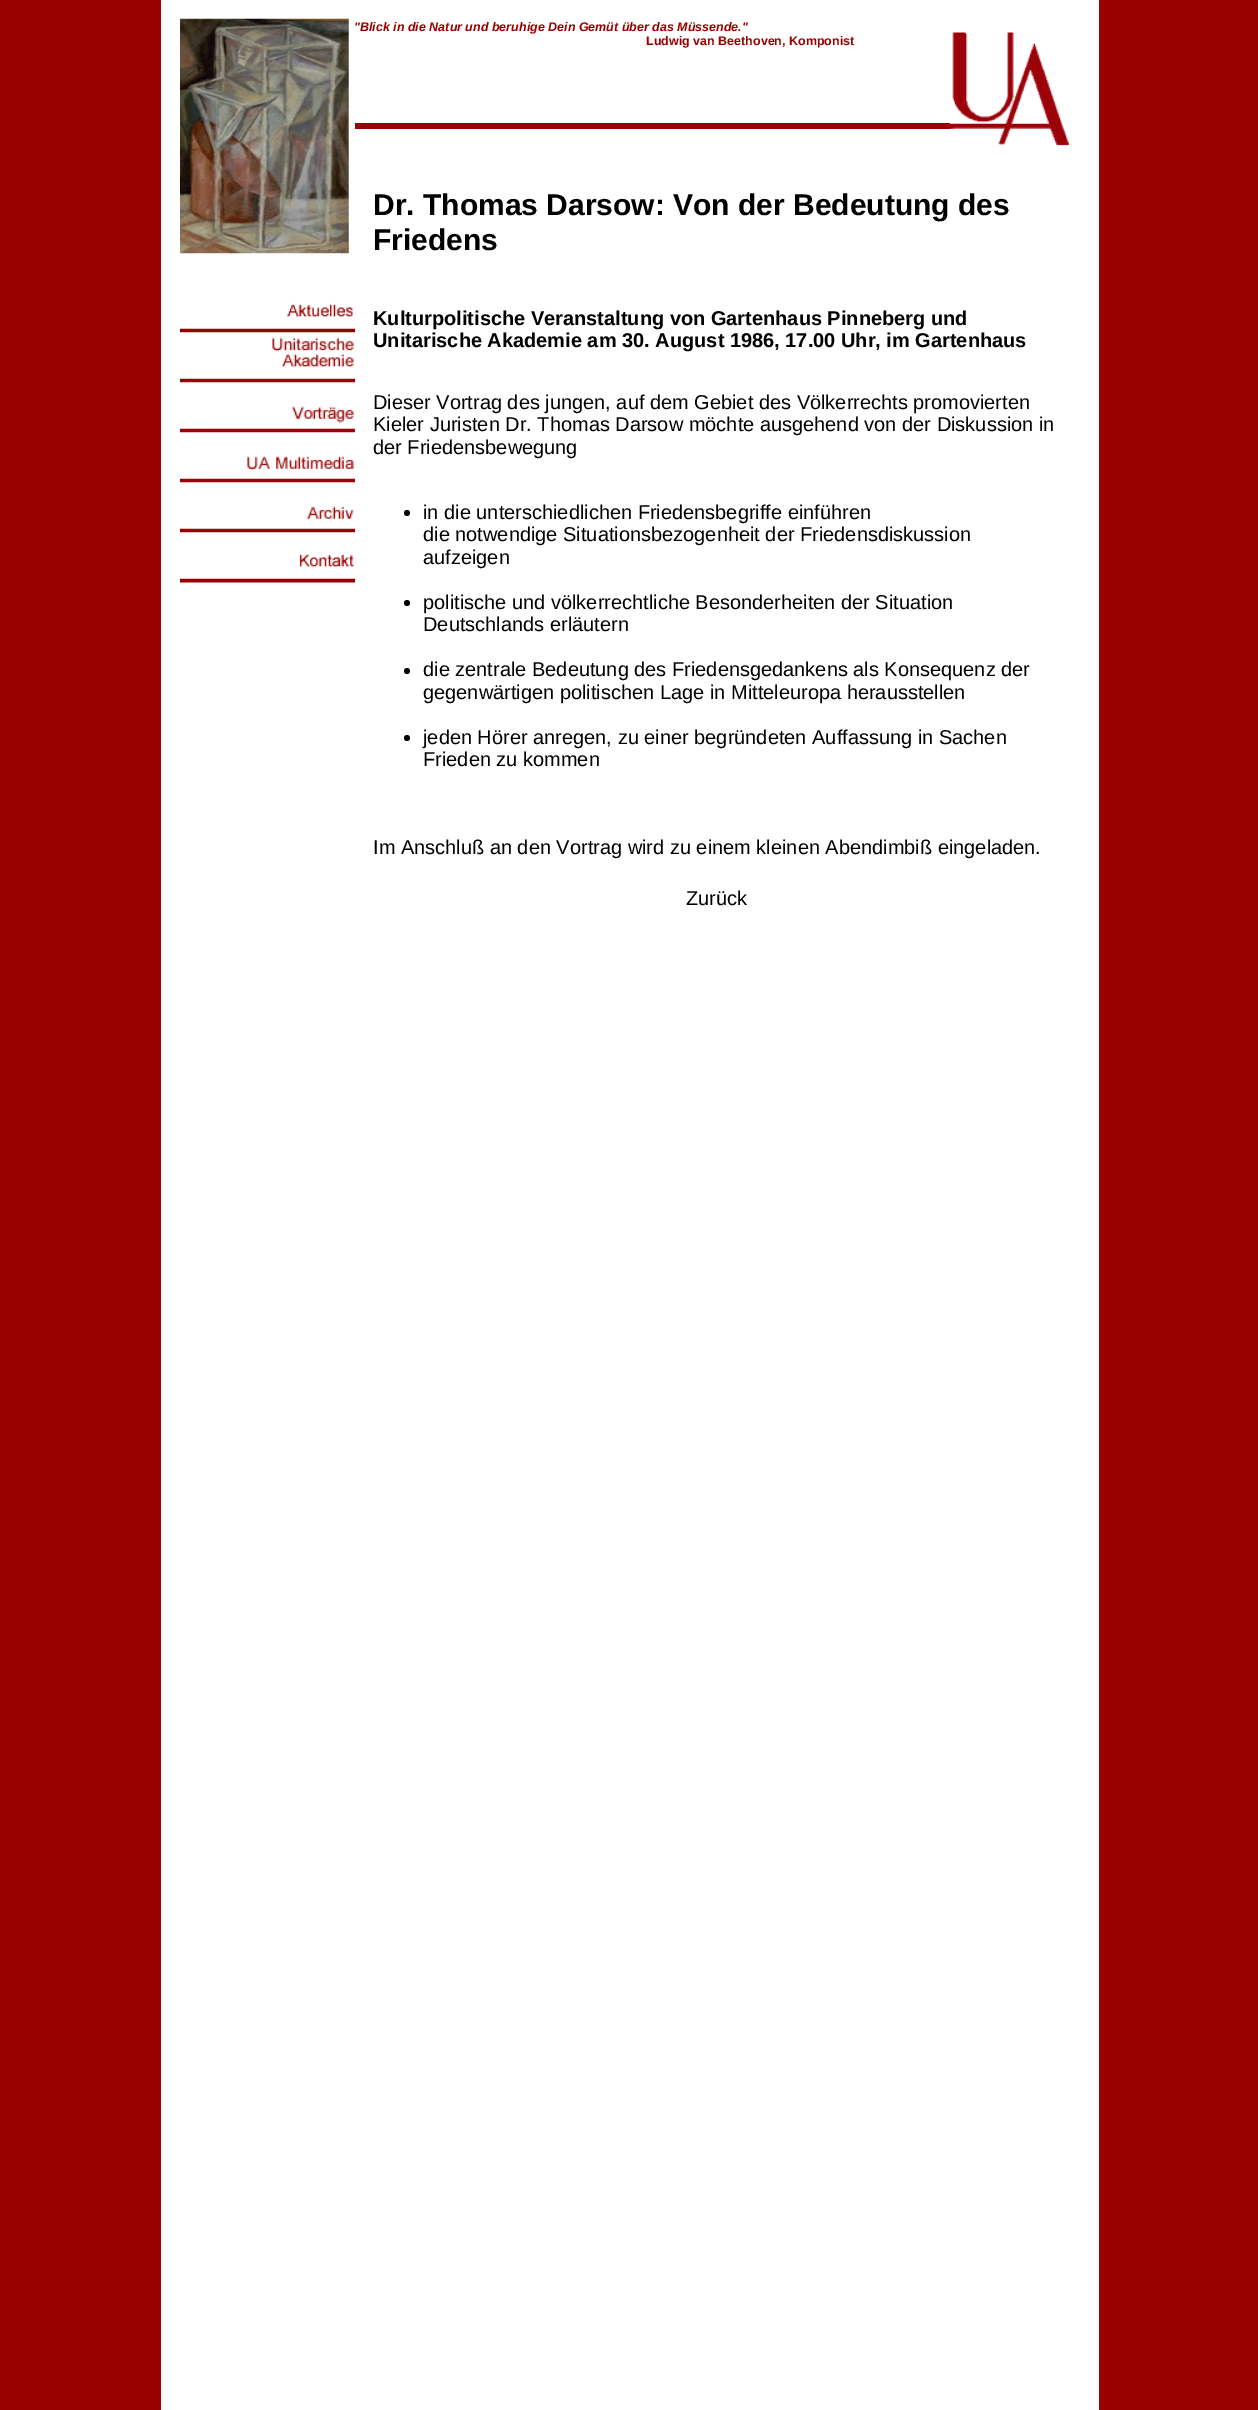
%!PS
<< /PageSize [1258 2410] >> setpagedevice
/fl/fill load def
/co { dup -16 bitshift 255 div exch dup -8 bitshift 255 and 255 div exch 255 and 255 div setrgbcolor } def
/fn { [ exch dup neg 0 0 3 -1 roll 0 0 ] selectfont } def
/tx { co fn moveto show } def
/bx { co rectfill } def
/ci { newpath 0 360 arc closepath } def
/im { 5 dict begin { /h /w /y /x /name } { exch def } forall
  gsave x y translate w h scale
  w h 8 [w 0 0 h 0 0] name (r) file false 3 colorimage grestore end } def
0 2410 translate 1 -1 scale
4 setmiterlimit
0 0 1258 2410 16#FFFFFF bx
0 0 161 2410 16#990000 bx
(media/1.raw) 180 18 169 236 im
(media/2.raw) 180 303 175 30 im
(media/3.raw) 180 332 175 51 im
(media/4.raw) 180 382 175 51 im
(media/5.raw) 180 432 175 51 im
(media/6.raw) 180 482 175 51 im
(media/7.raw) 180 532 175 51 im
355 123 595 6 16#9C0008 bx
(media/8.raw) 950 32 119 114 im
16#000000 co
407 513 3 ci fl
407 603 3 ci fl
407 671 3 ci fl
407 738 3 ci fl
1099 0 159 2410 16#990000 bx
("Blick in die Natur und beruhige Dein Gemüt über das Müssende.") 354 31 /LiberationSans-BoldItalic 12.5 16#990000 tx
(Ludwig van Beethoven, Komponist) 646 45 /LiberationSans-Bold 12.5 16#990000 tx
(Dr. Thomas Darsow: Von der Bedeutung des) 373 215 /LiberationSans-Bold 30 16#000000 tx
(Friedens) 373 250 /LiberationSans-Bold 30 16#000000 tx
(Kulturpolitische Veranstaltung von Gartenhaus Pinneberg und) 373 325 /LiberationSans-Bold 20 16#000000 tx
(Unitarische Akademie am 30. August 1986, 17.00 Uhr, im Gartenhaus) 373 347 /LiberationSans-Bold 20 16#000000 tx
(Dieser Vortrag des jungen, auf dem Gebiet des Völkerrechts promovierten) 373 409 /LiberationSans-Regular 20 16#000000 tx
(Kieler Juristen Dr. Thomas Darsow möchte ausgehend von der Diskussion in) 373 431 /LiberationSans-Regular 20 16#000000 tx
(der Friedensbewegung) 373 454 /LiberationSans-Regular 20 16#000000 tx
(in die unterschiedlichen Friedensbegriffe einführen) 423 519 /LiberationSans-Regular 20 16#000000 tx
(die notwendige Situationsbezogenheit der Friedensdiskussion) 423 541 /LiberationSans-Regular 20 16#000000 tx
(aufzeigen) 423 564 /LiberationSans-Regular 20 16#000000 tx
(politische und völkerrechtliche Besonderheiten der Situation) 423 609 /LiberationSans-Regular 20 16#000000 tx
(Deutschlands erläutern) 423 631 /LiberationSans-Regular 20 16#000000 tx
(die zentrale Bedeutung des Friedensgedankens als Konsequenz der) 423 676 /LiberationSans-Regular 20 16#000000 tx
(gegenwärtigen politischen Lage in Mitteleuropa herausstellen) 423 699 /LiberationSans-Regular 20 16#000000 tx
(jeden Hörer anregen, zu einer begründeten Auffassung in Sachen) 423 744 /LiberationSans-Regular 20 16#000000 tx
(Frieden zu kommen) 423 766 /LiberationSans-Regular 20 16#000000 tx
(Im Anschluß an den Vortrag wird zu einem kleinen Abendimbiß eingeladen.) 373 854 /LiberationSans-Regular 20 16#000000 tx
(Zurück) 686 905 /LiberationSans-Regular 20 16#000000 tx
showpage
